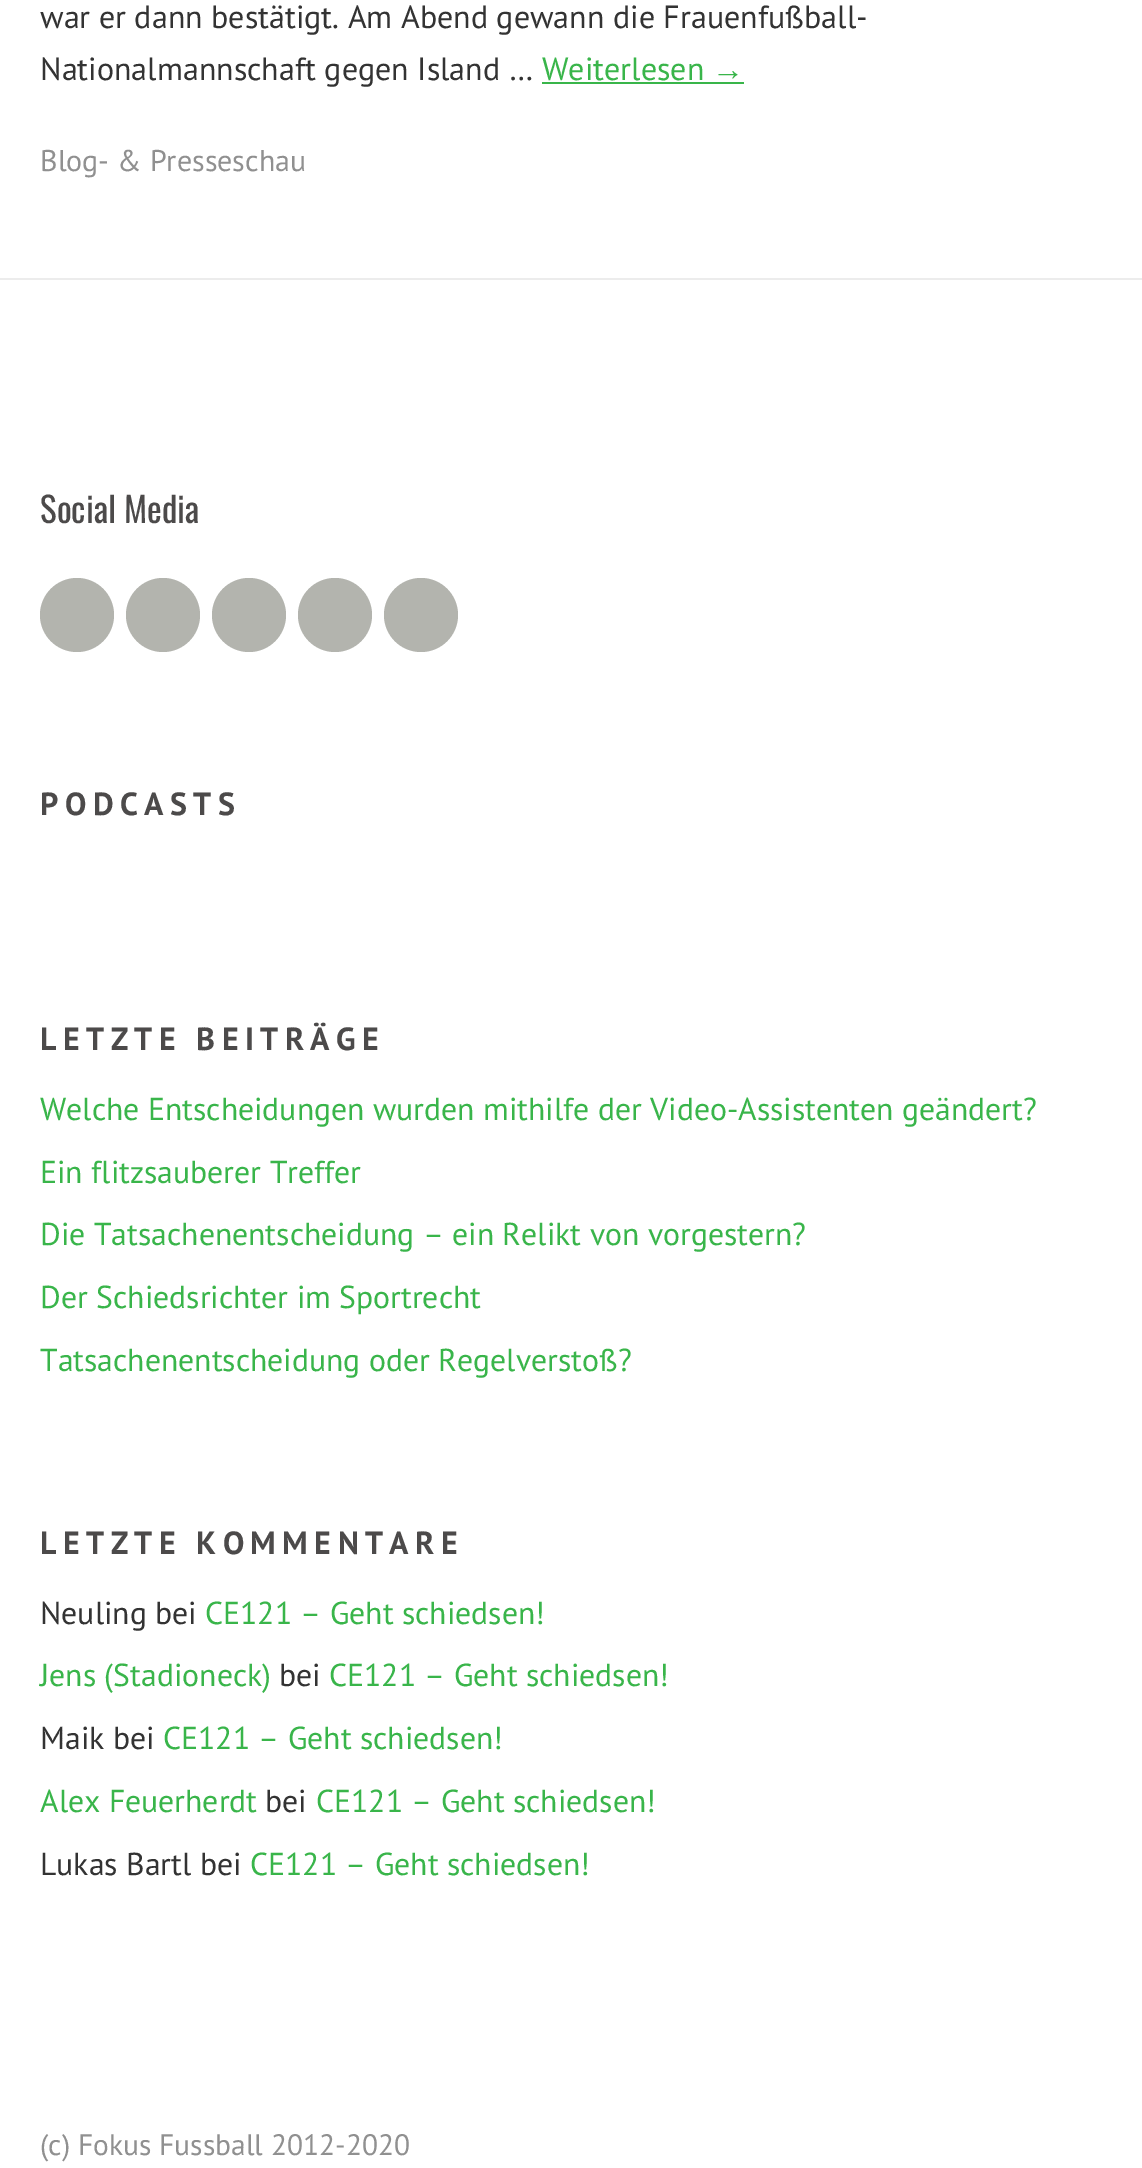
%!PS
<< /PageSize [1142 2168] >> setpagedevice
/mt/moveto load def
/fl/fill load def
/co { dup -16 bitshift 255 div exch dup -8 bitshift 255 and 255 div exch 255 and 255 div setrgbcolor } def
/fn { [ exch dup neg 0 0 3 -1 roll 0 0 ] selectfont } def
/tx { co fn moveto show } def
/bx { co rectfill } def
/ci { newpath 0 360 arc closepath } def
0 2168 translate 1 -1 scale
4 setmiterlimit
0 0 1142 2168 16#FFFFFF bx
0 278 1142 2 16#ECECEC bx
542 82 202 2 16#39B54A bx
16#B3B4AE co
77 615 37 ci fl
163 615 37 ci fl
249 615 37 ci fl
335 615 37 ci fl
421 615 37 ci fl
(war er dann bestätigt. Am Abend gewann die Frauenfußball-) 40 28 /PTSans-Regular 32 16#333333 tx
(Nationalmannschaft gegen Island …) 40 80 /PTSans-Regular 32 16#333333 tx
(Weiterlesen) 542 80 /PTSans-Regular 32 16#39B54A tx
(→) 712 80 /LiberationSans-Regular 32 16#39B54A tx
(Blog- & Presseschau) 40 171 /PTSans-Regular 30 16#909090 tx
(Social Media) 40 523 /Oswald-Regular 35 16#4C4A4A tx
/PTSans-Bold 32 fn
40 815 mt 6.4 0 (PODCASTS) ashow
40 1050 mt 6.4 0 (LETZTE BEITRÄGE) ashow
(Welche Entscheidungen wurden mithilfe der Video-Assistenten geändert?) 40 1120 /PTSans-Regular 31.7 16#39B54A tx
(Ein flitzsauberer Treffer) 40 1183 /PTSans-Regular 31.7 16#39B54A tx
(Die Tatsachenentscheidung – ein Relikt von vorgestern?) 40 1245 /PTSans-Regular 31.7 16#39B54A tx
(Der Schiedsrichter im Sportrecht) 40 1308 /PTSans-Regular 31.7 16#39B54A tx
(Tatsachenentscheidung oder Regelverstoß?) 40 1371 /PTSans-Regular 31.7 16#39B54A tx
/PTSans-Bold 32 fn
16#4C4A4A co
40 1554 mt 6.4 0 (LETZTE KOMMENTARE) ashow
(Neuling bei) 40 1624 /PTSans-Regular 31.7 16#333333 tx
(CE121 – Geht schiedsen!) 205 1624 /PTSans-Regular 31.7 16#39B54A tx
(Jens \(Stadioneck\)) 40 1686 /PTSans-Regular 31.7 16#39B54A tx
(bei) 279 1686 /PTSans-Regular 31.7 16#333333 tx
(CE121 – Geht schiedsen!) 329 1686 /PTSans-Regular 31.7 16#39B54A tx
(Maik bei) 40 1749 /PTSans-Regular 31.7 16#333333 tx
(CE121 – Geht schiedsen!) 163 1749 /PTSans-Regular 31.7 16#39B54A tx
(Alex Feuerherdt) 40 1812 /PTSans-Regular 31.7 16#39B54A tx
(bei) 265 1812 /PTSans-Regular 31.7 16#333333 tx
(CE121 – Geht schiedsen!) 316 1812 /PTSans-Regular 31.7 16#39B54A tx
(Lukas Bartl bei) 40 1875 /PTSans-Regular 31.7 16#333333 tx
(CE121 – Geht schiedsen!) 250 1875 /PTSans-Regular 31.7 16#39B54A tx
(\(c\) Fokus Fussball 2012-2020) 40 2155 /PTSans-Regular 29.5 16#909090 tx
showpage
